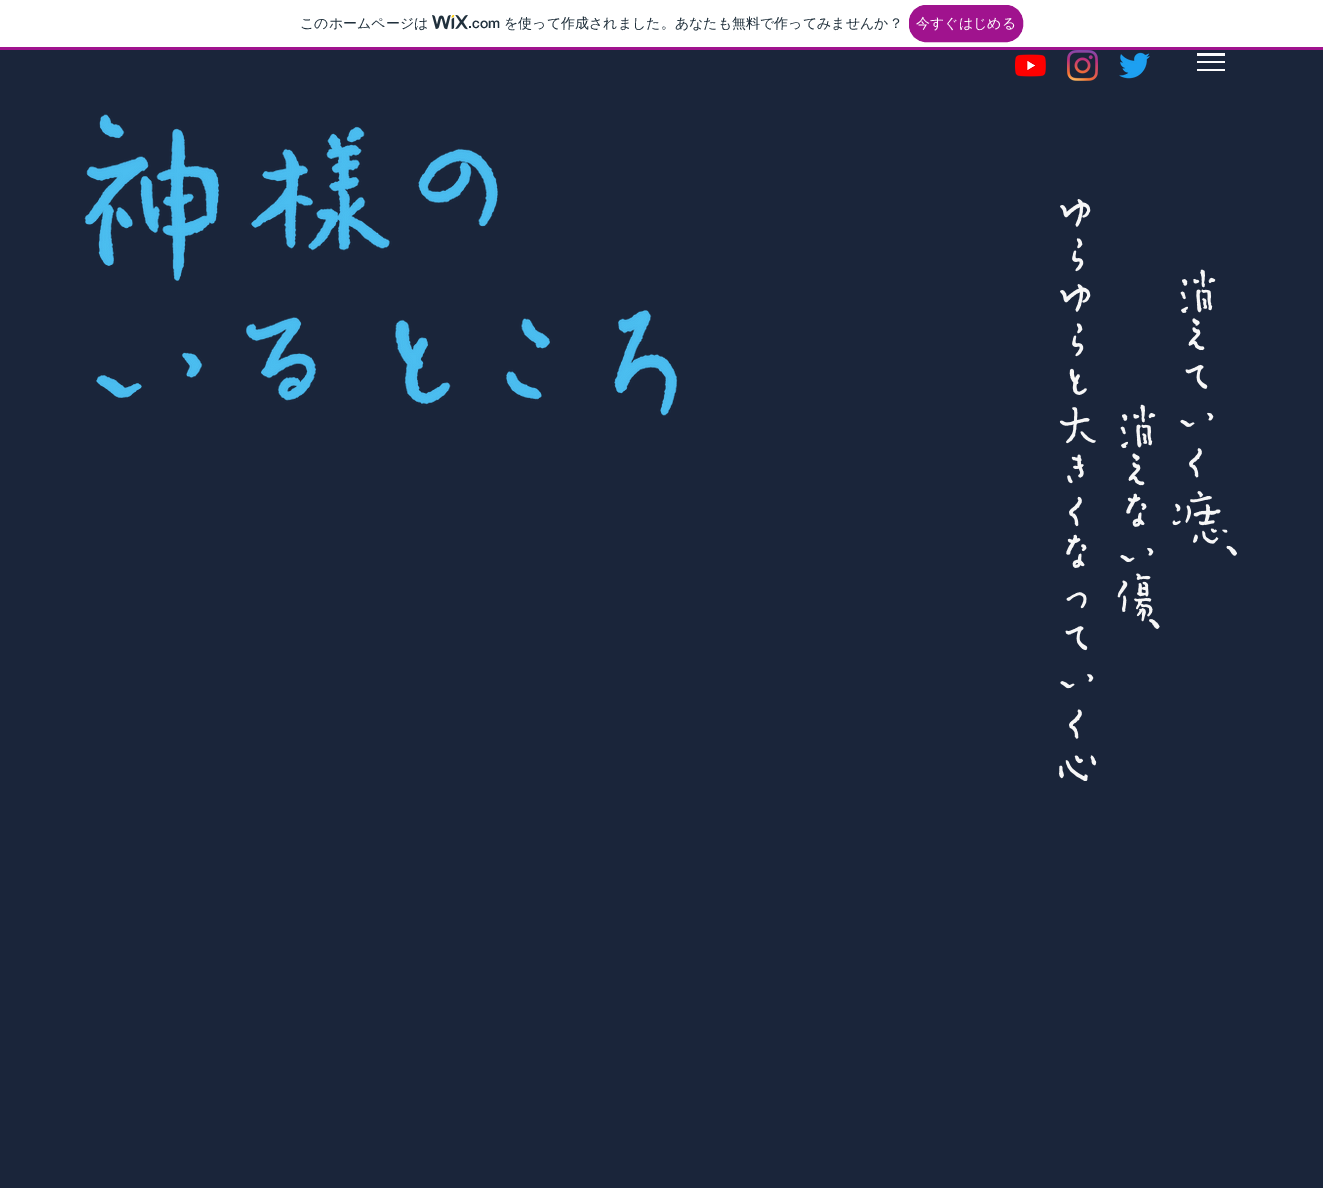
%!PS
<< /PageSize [1323 1188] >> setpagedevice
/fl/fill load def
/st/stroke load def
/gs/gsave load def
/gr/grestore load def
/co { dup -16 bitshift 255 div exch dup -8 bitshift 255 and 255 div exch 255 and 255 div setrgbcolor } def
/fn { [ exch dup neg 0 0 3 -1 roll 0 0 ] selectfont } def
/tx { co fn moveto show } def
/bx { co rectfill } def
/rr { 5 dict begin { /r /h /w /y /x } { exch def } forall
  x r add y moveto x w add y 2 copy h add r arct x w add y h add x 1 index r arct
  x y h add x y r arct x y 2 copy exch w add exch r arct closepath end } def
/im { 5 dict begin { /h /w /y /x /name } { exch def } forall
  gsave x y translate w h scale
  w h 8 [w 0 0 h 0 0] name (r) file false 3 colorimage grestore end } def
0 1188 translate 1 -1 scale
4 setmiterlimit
0 0 1323 1188 16#FFFFFF bx
0 47 1323 3 16#A0138E bx
(media/1.raw) 432 15 36 15 im
909.5 5.5 113 36 16.5 rr gs fl gr
st
0 50 1323 1138 16#1A253A bx
(media/2.raw) 1015 54 31 23 im
(media/3.raw) 1067 50 31 31 im
(media/4.raw) 1119 52 31 27 im
1197 69 28 2 16#FCFCFC bx
1197 53 28 3 16#FCFCFC bx
1197 61 28 2 16#FCFCFC bx
(media/5.raw) 84 114 594 302 im
(media/6.raw) 1059 199 178 582 im
(このホームページは) 300 28 /WenQuanYiZenHei-Medium 14 16#20303C tx
(.com) 468 28 /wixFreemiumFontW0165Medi-Medium 14 16#20303C tx
(を使って作成されました。あなたも無料で作ってみませんか？) 504 28 /WenQuanYiZenHei-Medium 14 16#20303C tx
(今すぐはじめる) 916 28 /WenQuanYiZenHei-Medium 14 16#FFFFFF tx
showpage
